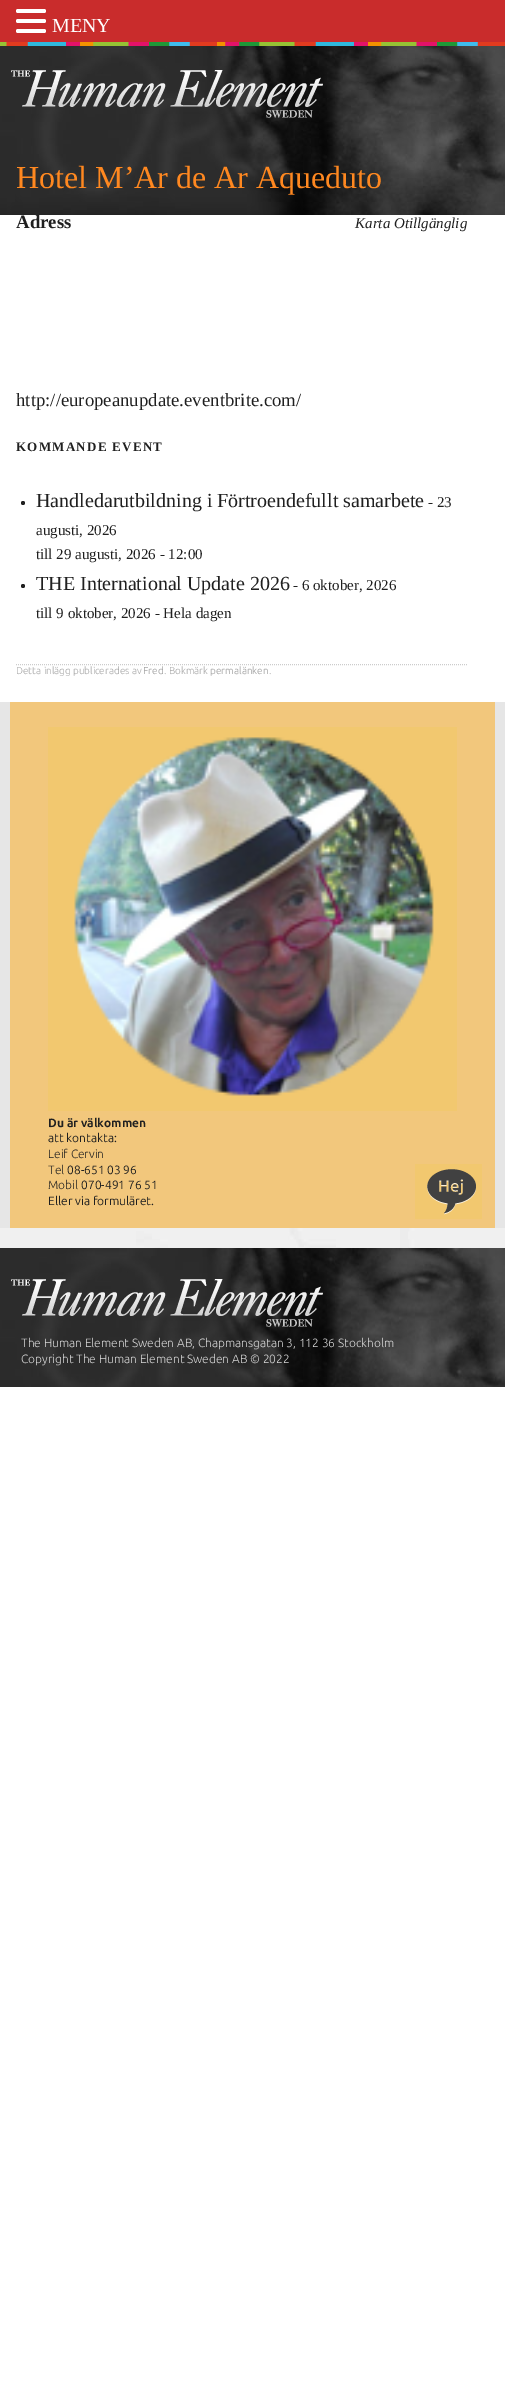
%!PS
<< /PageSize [505 2396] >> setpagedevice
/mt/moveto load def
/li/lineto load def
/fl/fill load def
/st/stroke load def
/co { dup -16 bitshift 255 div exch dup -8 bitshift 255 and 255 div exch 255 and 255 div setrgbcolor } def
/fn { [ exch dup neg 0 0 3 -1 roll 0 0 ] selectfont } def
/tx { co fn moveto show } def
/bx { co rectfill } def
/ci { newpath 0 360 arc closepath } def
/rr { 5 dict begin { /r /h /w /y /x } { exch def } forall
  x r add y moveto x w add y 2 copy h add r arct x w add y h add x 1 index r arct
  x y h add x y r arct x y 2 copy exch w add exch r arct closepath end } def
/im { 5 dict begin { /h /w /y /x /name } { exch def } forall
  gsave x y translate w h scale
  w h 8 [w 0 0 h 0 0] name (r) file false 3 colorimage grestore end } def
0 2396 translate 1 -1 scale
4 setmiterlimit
0 0 505 2396 16#FFFFFF bx
(media/1.raw) 0 46 505 169 im
0 1228 136 20 16#F0F0F0 bx
(media/2.raw) 136 1228 369 20 im
0 0 505 42 16#C92C2C bx
16#FFFFFF co
16 9 30 4 2 rr fl
16 19 30 4 2 rr fl
16 29 30 4 2 rr fl
16#202020 co
23 503 2 ci fl
23 586 2 ci fl
16#CCCCCC co
[1 1] 0 setdash
16 664.5 mt 467 664.5 li st
0 702 505 526 16#E6E6E6 bx
10 702 485 526 16#F2C77C bx
(media/3.raw) 415 1164 67 55 im
(media/4.raw) 48 727 409 384 im
(media/5.raw) 0 1248 505 139 im
(media/6.raw) 11 1279 312 48 im
(media/7.raw) 0 42 505 4 im
(media/8.raw) 11 70 312 48 im
(MENY) 52 32 /LiberationSerif-Regular 20 16#FFFFFF tx
(Hotel M’Ar de Ar Aqueduto) 16 188 /LiberationSerif-Regular 32 16#FF8820 tx
(Adress) 16 228 /LiberationSerif-Bold 18.75 16#202020 tx
(Karta Otillgänglig) 355 228 /LiberationSerif-Italic 15 16#202020 tx
(http://europeanupdate.eventbrite.com/) 16 406 /LiberationSerif-Regular 18.75 16#202020 tx
/LiberationSerif-Bold 13 fn
16 451 mt 1.25 0 (KOMMANDE EVENT) ashow
(Handledarutbildning i Förtroendefullt samarbete) 36 507 /LiberationSerif-Regular 20 16#202020 tx
(- 23) 428 507 /LiberationSerif-Regular 15 16#202020 tx
(augusti, 2026) 36 535 /LiberationSerif-Regular 15 16#202020 tx
(till 29 augusti, 2026 - 12:00) 36 559 /LiberationSerif-Regular 15 16#202020 tx
(THE International Update 2026) 36 590 /LiberationSerif-Regular 20 16#202020 tx
(- 6 oktober, 2026) 293 590 /LiberationSerif-Regular 15 16#202020 tx
(till 9 oktober, 2026 - Hela dagen) 36 618 /LiberationSerif-Regular 15 16#202020 tx
(Detta inlägg publicerades av) 16 674 /Ubuntu-Light 10 16#A6A6A6 tx
(Fred) 143 674 /Ubuntu-Regular 10 16#A6A6A6 tx
(. Bokmärk) 164 674 /Ubuntu-Light 10 16#A6A6A6 tx
(permalänken) 210 674 /Ubuntu-Regular 10 16#A6A6A6 tx
(.) 269 674 /Ubuntu-Light 10 16#A6A6A6 tx
(Du är välkommen) 48 1127 /Ubuntu-Bold 12 16#202020 tx
(att kontakta:) 48 1142 /Ubuntu-Regular 12 16#202020 tx
(Leif Cervin) 48 1158 /Ubuntu-Light 12 16#202020 tx
(Tel) 48 1174 /Ubuntu-Light 12 16#202020 tx
(08-651 03 96) 67 1174 /Ubuntu-Regular 12 16#202020 tx
(Mobil) 48 1189 /Ubuntu-Light 12 16#202020 tx
(070-491 76 51) 81 1189 /Ubuntu-Regular 12 16#202020 tx
(Eller via formuläret.) 48 1205 /Ubuntu-Regular 12 16#202020 tx
(The Human Element Sweden AB, Chapmansgatan 3, 112 36 Stockholm) 21 1347 /Ubuntu-Light 12 16#DADADA tx
(Copyright The Human Element Sweden AB © 2022) 21 1363 /Ubuntu-Light 12 16#DADADA tx
showpage
